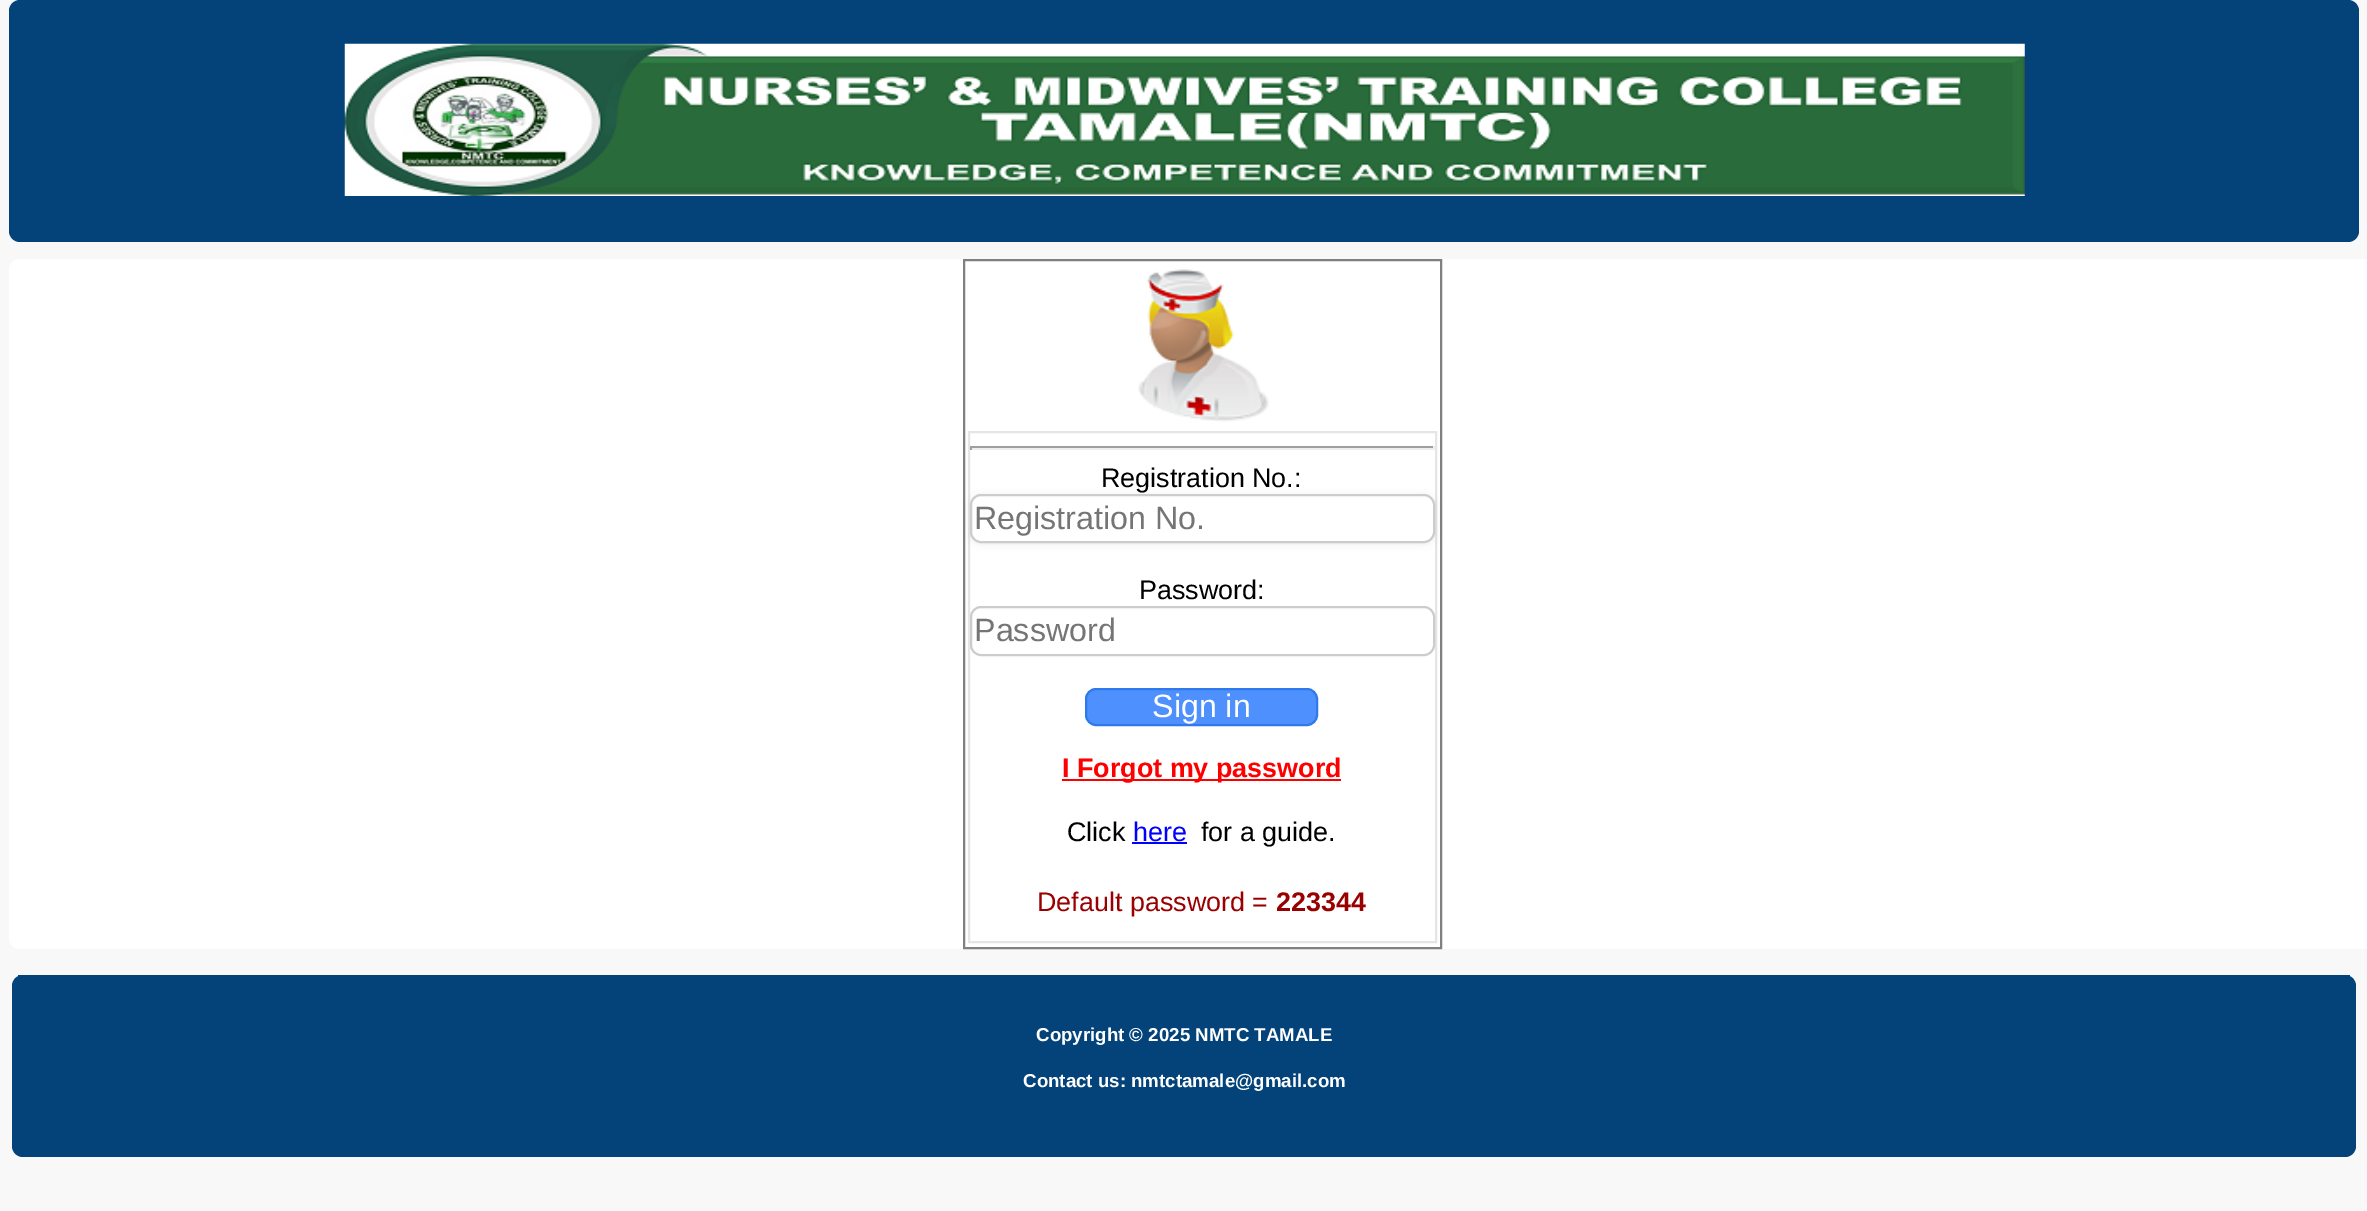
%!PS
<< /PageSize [2367 1211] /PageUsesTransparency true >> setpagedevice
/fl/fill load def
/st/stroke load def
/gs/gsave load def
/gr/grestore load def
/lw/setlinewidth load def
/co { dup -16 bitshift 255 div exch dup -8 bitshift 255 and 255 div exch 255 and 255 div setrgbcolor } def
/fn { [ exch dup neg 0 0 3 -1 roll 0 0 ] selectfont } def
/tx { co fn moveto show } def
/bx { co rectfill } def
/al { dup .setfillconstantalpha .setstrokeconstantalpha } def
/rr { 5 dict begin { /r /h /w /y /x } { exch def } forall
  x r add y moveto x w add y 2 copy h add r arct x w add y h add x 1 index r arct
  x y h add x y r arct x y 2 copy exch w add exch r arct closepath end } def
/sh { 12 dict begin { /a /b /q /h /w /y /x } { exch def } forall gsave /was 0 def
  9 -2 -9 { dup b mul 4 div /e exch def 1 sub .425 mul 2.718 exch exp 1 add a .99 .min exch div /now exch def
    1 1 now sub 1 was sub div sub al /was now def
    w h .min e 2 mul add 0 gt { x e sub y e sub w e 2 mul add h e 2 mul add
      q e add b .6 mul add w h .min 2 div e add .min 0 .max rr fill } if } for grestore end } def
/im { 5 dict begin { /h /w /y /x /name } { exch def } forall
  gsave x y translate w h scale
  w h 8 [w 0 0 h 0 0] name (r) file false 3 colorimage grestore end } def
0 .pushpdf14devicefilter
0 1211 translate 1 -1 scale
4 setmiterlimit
0 0 2367 1211 16#F8F8F8 bx
16#03437A co
9 0 2350 242 11 rr fl
(media/1.raw) 344 43 1681 153 im
16#FFFFFF co
9 259 2350 690 11 rr fl
26 259 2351 690 11 rr fl
16#808080 co
2 lw
964 260 477 688 rectstroke
(media/2.raw) 1138 269 131 153 im
16#E5E5E5 co
969 432 467 510 rectstroke
970 446 465 2 16#9F9F9F bx
1433 446 2 4 16#EEEEEE bx
970 448 465 2 16#EEEEEE bx
970 446 2 4 16#9F9F9F bx
16#000000 co
970 495 465 49 11 3.5 .07 sh
16#FFFFFF co
971 495 463 47 10 rr gs fl gr
16#CCCCCC co
st
971 607 463 48 10 rr st
16#4D90FE co
1086 689 231 36 10 rr gs fl gr
16#3079ED co
st
1062 779 279 2 16#FF0000 bx
1132 842 55 2 16#0000FF bx
16#03437A co
12 975 2344 182 11 rr fl
18 975 2332 2 16#03437A bx
(Registration No.:) 1101 487 /LiberationSans-Regular 26.9 16#000000 tx
(Registration No.) 974 529 /LiberationSans-Regular 32.25 16#757575 tx
(Password:) 1139 599 /LiberationSans-Regular 26.9 16#000000 tx
(Password) 974 641 /LiberationSans-Regular 32.25 16#757575 tx
(Sign in) 1152 717 /LiberationSans-Regular 32.25 16#FFFFFF tx
(I Forgot my password) 1062 777 /LiberationSans-Bold 26.9 16#FF0000 tx
(Click) 1067 841 /LiberationSans-Regular 26.9 16#000000 tx
(here) 1133 841 /LiberationSans-Regular 26.9 16#0000FF tx
(for a guide.) 1201 841 /LiberationSans-Regular 26.9 16#000000 tx
(Default password =) 1037 911 /LiberationSans-Regular 26.9 16#990000 tx
(223344) 1276 911 /LiberationSans-Bold 26.9 16#990000 tx
(Copyright © 2025 NMTC TAMALE) 1036 1041 /LiberationSans-Bold 18.7 16#FFFFFF tx
(Contact us: nmtctamale@gmail.com) 1023 1087 /LiberationSans-Bold 18.7 16#FFFFFF tx
.poppdf14devicefilter showpage
